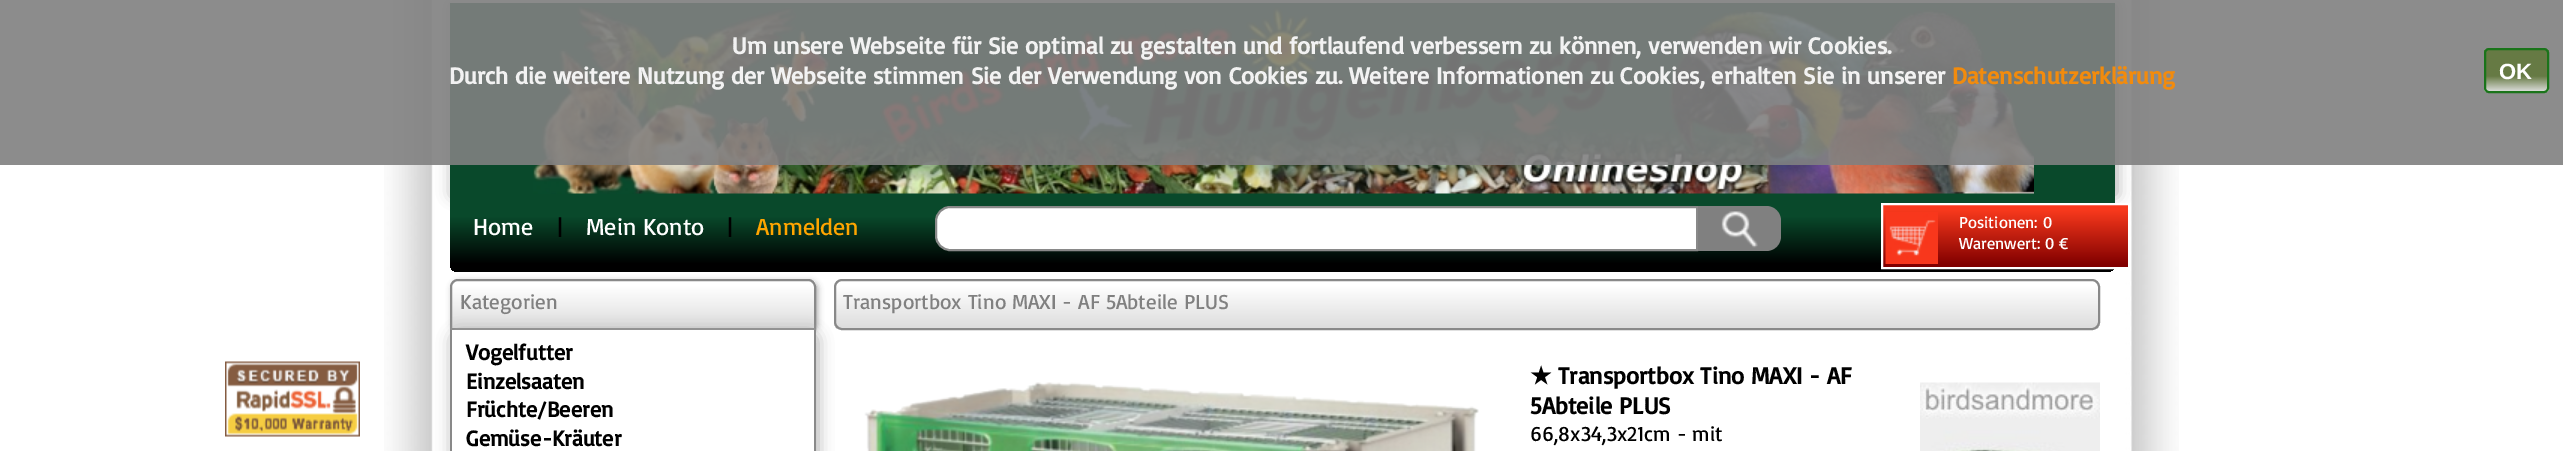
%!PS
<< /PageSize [2563 451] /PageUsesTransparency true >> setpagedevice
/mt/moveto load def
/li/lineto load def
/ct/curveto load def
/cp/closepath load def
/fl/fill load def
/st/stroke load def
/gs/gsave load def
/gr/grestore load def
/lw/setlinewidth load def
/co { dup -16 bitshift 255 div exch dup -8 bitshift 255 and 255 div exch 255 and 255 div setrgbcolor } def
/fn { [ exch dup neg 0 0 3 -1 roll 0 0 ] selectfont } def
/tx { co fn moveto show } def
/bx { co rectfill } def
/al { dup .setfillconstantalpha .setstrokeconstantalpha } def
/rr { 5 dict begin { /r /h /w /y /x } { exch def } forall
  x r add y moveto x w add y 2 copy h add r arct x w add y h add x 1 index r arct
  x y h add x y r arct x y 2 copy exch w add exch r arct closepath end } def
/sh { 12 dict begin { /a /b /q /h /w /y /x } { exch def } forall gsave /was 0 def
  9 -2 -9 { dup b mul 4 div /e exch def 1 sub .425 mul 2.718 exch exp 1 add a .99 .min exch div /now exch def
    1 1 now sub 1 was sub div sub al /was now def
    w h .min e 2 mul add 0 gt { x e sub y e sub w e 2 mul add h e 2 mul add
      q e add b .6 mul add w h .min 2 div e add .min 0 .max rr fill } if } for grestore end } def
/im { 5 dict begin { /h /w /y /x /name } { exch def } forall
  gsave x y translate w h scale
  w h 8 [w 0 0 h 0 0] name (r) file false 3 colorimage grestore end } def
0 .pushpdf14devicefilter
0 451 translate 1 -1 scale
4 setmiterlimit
0 0 2563 451 16#FFFFFF bx
(media/1.raw) 384 0 1795 451 im
16#AAAAAA co
452 5 1665 190 0 7.5 1 sh
450 3 1665 191 16#09492B bx
(media/3.raw) 533 6 1501 188 im
0.9 al
0 0 2563 165 16#808080 bx
gs
2484 48 65 45 5 rr clip newpath
1 al
gs 2484 50 mt 2549 50 li 2549 92 li 2484 92 li cp clip newpath
<< /ShadingType 2 /ColorSpace /DeviceRGB /Coords [2516 92 2516 50] /Extend [true true] /Function << /FunctionType 3 /Domain [0 1] /Functions [<< /FunctionType 2 /Domain [0 1] /C0 [.878 .878 .878] /C1 [.4 .478 .267] /N 1 >> << /FunctionType 2 /Domain [0 1] /C0 [.4 .478 .267] /C1 [.4 .478 .267] /N 1 >>] /Bounds [.38] /Encode [0 1 0 1] >> >> shfill gr
gr
1 al
16#1A741A co
2 lw
2485 49 63 43 4 rr st
(media/2.raw) 225 361 135 76 im
16#AAAAAA co
452 281 366 51 8 3 1 sh
gs 450 194 mt 2115 194 li 2115 264 li 2115 268.5 2111.5 272 2107 272 ct 458 272 li 453.5 272 450 268.5 450 264 ct cp clip newpath
<< /ShadingType 2 /ColorSpace /DeviceRGB /Coords [1283 193 1283 272] /Extend [true true] /Function << /FunctionType 3 /Domain [0 1] /Functions [<< /FunctionType 2 /Domain [0 1] /C0 [.035 .286 .169] /C1 [.035 .286 .169] /N 1 >> << /FunctionType 2 /Domain [0 1] /C0 [.035 .286 .169] /C1 [0 0 0] /N 1 >> << /FunctionType 2 /Domain [0 1] /C0 [0 0 0] /C1 [0 0 0] /N 1 >>] /Bounds [.3 .9] /Encode [0 1 0 1 0 1] >> >> shfill gr
16#FFFFFF co
950 207 mt 1697 207 li 1697 250 li 950 250 li 942.5 250 936 243.5 936 236 ct 936 221 li 936 213.5 942.5 207 950 207 ct cp gs fl gr
16#898989 co
st
16#808080 co
1698 206 mt 1766 206 li 1774.5 206 1781 212.5 1781 221 ct 1781 236 li 1781 244.5 1774.5 251 1766 251 ct 1698 251 li cp fl
(media/4.raw) 1721 211 37 37 im
gs 1883 205 mt 2128 205 li 2128 267 li 1883 267 li cp clip newpath
<< /ShadingType 2 /ColorSpace /DeviceRGB /Coords [2006 267 2006 204] /Extend [true true] /Function << /FunctionType 3 /Domain [0 1] /Functions [<< /FunctionType 2 /Domain [0 1] /C0 [.502 0 0] /C1 [.502 0 0] /N 1 >> << /FunctionType 2 /Domain [0 1] /C0 [.502 0 0] /C1 [.969 .22 .11] /N 1 >> << /FunctionType 2 /Domain [0 1] /C0 [.969 .22 .11] /C1 [.969 .22 .11] /N 1 >>] /Bounds [.03 .9] /Encode [0 1 0 1 0 1] >> >> shfill gr
16#FFFFFF co
1882 204 247 64 rectstroke
(media/5.raw) 1885 212 53 52 im
gs
458 279 mt 808 279 li 812.5 279 816 282.5 816 287 ct 816 330 li 450 330 li 450 287 li 450 282.5 453.5 279 458 279 ct cp clip newpath
gs 450 281 mt 816 281 li 816 328 li 450 328 li cp clip newpath
<< /ShadingType 2 /ColorSpace /DeviceRGB /Coords [633 329 633 281] /Extend [true true] /Function << /FunctionType 3 /Domain [0 1] /Functions [<< /FunctionType 2 /Domain [0 1] /C0 [.863 .863 .863] /C1 [1 1 1] /N 1 >> << /FunctionType 2 /Domain [0 1] /C0 [1 1 1] /C1 [1 1 1] /N 1 >>] /Bounds [.9] /Encode [0 1 0 1] >> >> shfill gr
gr
16#898989 co
458 280 mt 808 280 li 812 280 815 283 815 287 ct 815 329 li 451 329 li 451 287 li 451 283 454 280 458 280 ct cp st
16#AAAAAA co
452 332 366 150 8 7.5 1 sh
452 330 362 121 16#FFFFFF bx
16#898989 co
450 330 mt 816 330 li 816 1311 li 816 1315 813 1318 808 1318 ct 458 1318 li 453 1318 450 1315 450 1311 ct cp 452 330 mt 814 330 li 814 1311 li 814 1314 812 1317 808 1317 ct 458 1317 li 454 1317 452 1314 452 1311 ct cp eofill
gs
834 279 1266 51 8 rr clip newpath
gs 834 281 mt 2100 281 li 2100 329 li 834 329 li cp clip newpath
<< /ShadingType 2 /ColorSpace /DeviceRGB /Coords [1467 329 1467 281] /Extend [true true] /Function << /FunctionType 3 /Domain [0 1] /Functions [<< /FunctionType 2 /Domain [0 1] /C0 [.863 .863 .863] /C1 [1 1 1] /N 1 >> << /FunctionType 2 /Domain [0 1] /C0 [1 1 1] /C1 [1 1 1] /N 1 >>] /Bounds [.9] /Encode [0 1 0 1] >> >> shfill gr
gr
835 280 1264 49 7 rr st
(media/6.raw) 864 382 615 69 im
(media/7.raw) 1920 382 180 69 im
(Um unsere Webseite für Sie optimal zu gestalten und fortlaufend verbessern zu können, verwenden wir Cookies.) 732 54 /Basic-Bold 24 16#F2F2F2 tx
(Durch die weitere Nutzung der Webseite stimmen Sie der Verwendung von Cookies zu. Weitere Informationen zu Cookies, erhalten Sie in unserer) 449 84 /Basic-Bold 24 16#F2F2F2 tx
(Datenschutzerklärung) 1952 84 /Basic-Bold 24 16#F28B0D tx
(OK) 2499 79 /LiberationSans-Bold 22 16#FFFFFF tx
(Home) 473 235 /Basic-Regular 24 16#FFFFFF tx
(|) 557 235 /Basic-Regular 24 16#000000 tx
(Mein Konto) 586 235 /Basic-Regular 24 16#FFFFFF tx
(|) 727 235 /Basic-Regular 24 16#000000 tx
(Anmelden) 756 235 /Basic-Regular 24 16#FFA500 tx
(Positionen: 0) 1959 228 /Basic-Regular 16.5 16#FFFFFF tx
(Warenwert: 0 €) 1959 249 /Basic-Regular 16.5 16#FFFFFF tx
(Kategorien) 460 309 /Basic-Regular 21 16#808080 tx
(Vogelfutter) 466 360 /Basic-Bold 22.25 16#000000 tx
(Einzelsaaten) 466 389 /Basic-Bold 22.25 16#000000 tx
(Früchte/Beeren) 466 417 /Basic-Bold 22.25 16#000000 tx
(Gemüse-Kräuter) 466 446 /Basic-Bold 22.25 16#000000 tx
(Transportbox Tino MAXI - AF 5Abteile PLUS) 843 309 /Basic-Regular 21 16#808080 tx
(★) 1530 384 /DejaVuSans-Bold 24 16#000000 tx
(Transportbox Tino MAXI - AF) 1558 384 /Basic-Bold 24 16#000000 tx
(5Abteile PLUS) 1530 414 /Basic-Bold 24 16#000000 tx
(66,8x34,3x21cm - mit) 1530 441 /Basic-Regular 21 16#000000 tx
.poppdf14devicefilter showpage
